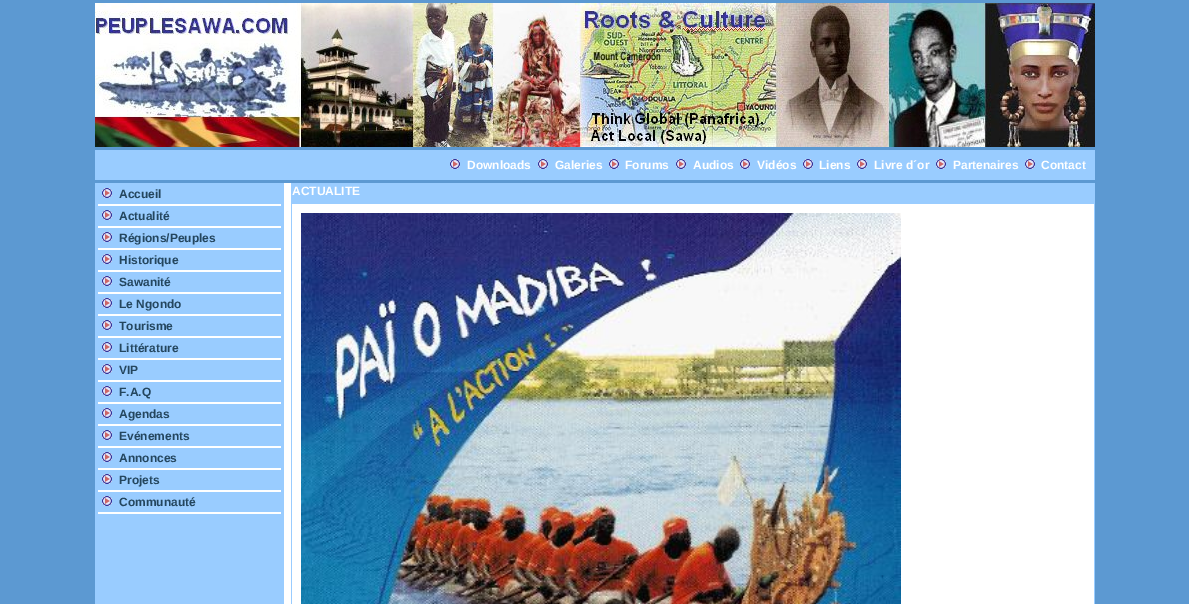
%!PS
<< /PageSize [1189 604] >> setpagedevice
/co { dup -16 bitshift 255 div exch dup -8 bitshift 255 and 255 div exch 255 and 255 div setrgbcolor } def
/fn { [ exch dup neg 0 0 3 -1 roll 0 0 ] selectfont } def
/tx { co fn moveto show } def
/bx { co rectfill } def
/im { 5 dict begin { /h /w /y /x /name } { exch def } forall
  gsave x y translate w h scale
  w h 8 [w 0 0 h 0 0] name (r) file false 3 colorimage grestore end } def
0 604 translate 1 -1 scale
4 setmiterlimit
0 0 1189 604 16#5C99D2 bx
(media/1.raw) 95 3 1000 144 im
95 150 1000 30 16#99CCFF bx
(media/2.raw) 450 159 10 10 im
(media/2.raw) 538 159 10 10 im
(media/2.raw) 609 159 10 10 im
(media/2.raw) 676 159 10 10 im
(media/2.raw) 740 159 10 10 im
(media/2.raw) 803 159 10 10 im
(media/2.raw) 857 159 10 10 im
(media/2.raw) 936 159 10 10 im
(media/2.raw) 1025 159 10 10 im
95 183 189 421 16#99CCFF bx
(media/2.raw) 102 188 10 10 im
98 204 183 2 16#FFFFFF bx
(media/2.raw) 102 210 10 10 im
98 226 183 2 16#FFFFFF bx
(media/2.raw) 102 232 10 10 im
98 248 183 2 16#FFFFFF bx
(media/2.raw) 102 254 10 10 im
98 270 183 2 16#FFFFFF bx
(media/2.raw) 102 276 10 10 im
98 292 183 2 16#FFFFFF bx
(media/2.raw) 102 298 10 10 im
98 314 183 2 16#FFFFFF bx
(media/2.raw) 102 320 10 10 im
98 336 183 2 16#FFFFFF bx
(media/2.raw) 102 342 10 10 im
98 358 183 2 16#FFFFFF bx
(media/2.raw) 102 364 10 10 im
98 380 183 2 16#FFFFFF bx
(media/2.raw) 102 386 10 10 im
98 402 183 2 16#FFFFFF bx
(media/2.raw) 102 408 10 10 im
98 424 183 2 16#FFFFFF bx
(media/2.raw) 102 430 10 10 im
98 446 183 2 16#FFFFFF bx
(media/2.raw) 102 452 10 10 im
98 468 183 2 16#FFFFFF bx
(media/2.raw) 102 474 10 10 im
98 490 183 2 16#FFFFFF bx
(media/2.raw) 102 496 10 10 im
98 512 183 2 16#FFFFFF bx
284 183 7 421 16#FFFFFF bx
291 183 804 421 16#99CCFF bx
292 204 802 400 16#FFFFFF bx
(media/3.raw) 301 213 600 391 im
(Downloads) 467 169 /LiberationSans-Bold 12 16#FFFFFF tx
(Galeries) 555 169 /LiberationSans-Bold 12 16#FFFFFF tx
(Forums) 625 169 /LiberationSans-Bold 12 16#FFFFFF tx
(Audios) 693 169 /LiberationSans-Bold 12 16#FFFFFF tx
(Vidéos) 757 169 /LiberationSans-Bold 12 16#FFFFFF tx
(Liens) 819 169 /LiberationSans-Bold 12 16#FFFFFF tx
(Livre d´or) 874 169 /LiberationSans-Bold 12 16#FFFFFF tx
(Partenaires) 953 169 /LiberationSans-Bold 12 16#FFFFFF tx
(Contact) 1041 169 /LiberationSans-Bold 12 16#FFFFFF tx
(Accueil) 119 198 /LiberationSans-Bold 12 16#24465E tx
(Actualité) 119 220 /LiberationSans-Bold 12 16#24465E tx
(Régions/Peuples) 119 242 /LiberationSans-Bold 12 16#24465E tx
(Historique) 119 264 /LiberationSans-Bold 12 16#24465E tx
(Sawanité) 119 286 /LiberationSans-Bold 12 16#24465E tx
(Le Ngondo) 119 308 /LiberationSans-Bold 12 16#24465E tx
(Tourisme) 119 330 /LiberationSans-Bold 12 16#24465E tx
(Littérature) 119 352 /LiberationSans-Bold 12 16#24465E tx
(VIP) 119 374 /LiberationSans-Bold 12 16#24465E tx
(F.A.Q) 119 396 /LiberationSans-Bold 12 16#24465E tx
(Agendas) 119 418 /LiberationSans-Bold 12 16#24465E tx
(Evénements) 119 440 /LiberationSans-Bold 12 16#24465E tx
(Annonces) 119 462 /LiberationSans-Bold 12 16#24465E tx
(Projets) 119 484 /LiberationSans-Bold 12 16#24465E tx
(Communauté) 119 506 /LiberationSans-Bold 12 16#24465E tx
(ACTUALITE) 292 195 /LiberationSans-Bold 12 16#FFFFFF tx
showpage
